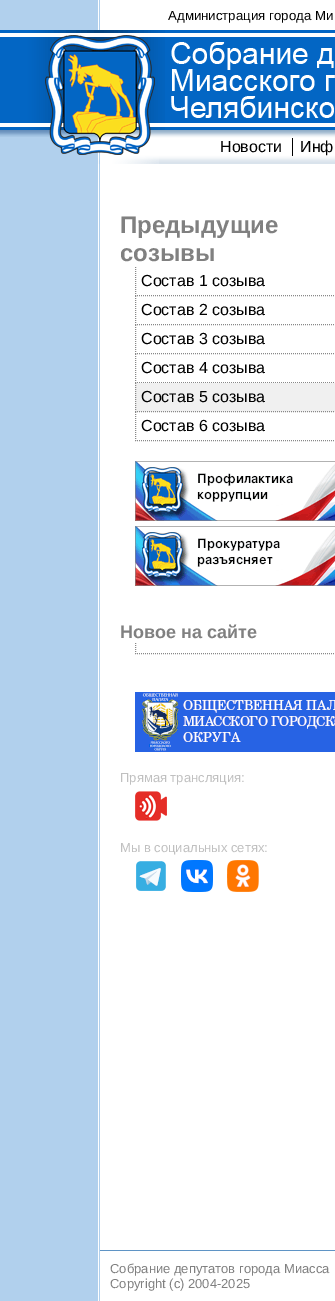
%!PS
<< /PageSize [335 1301] >> setpagedevice
/mt/moveto load def
/li/lineto load def
/st/stroke load def
/co { dup -16 bitshift 255 div exch dup -8 bitshift 255 and 255 div exch 255 and 255 div setrgbcolor } def
/fn { [ exch dup neg 0 0 3 -1 roll 0 0 ] selectfont } def
/tx { co fn moveto show } def
/bx { co rectfill } def
/im { 5 dict begin { /h /w /y /x /name } { exch def } forall
  gsave x y translate w h scale
  w h 8 [w 0 0 h 0 0] name (r) file false 3 colorimage grestore end } def
0 1301 translate 1 -1 scale
4 setmiterlimit
0 0 335 1301 16#B1D0ED bx
(media/1.raw) 0 130 49 7 im
98 0 1 30 16#FFFFFF bx
100 0 235 30 16#FFFFFF bx
(media/2.raw) 0 30 100 100 im
165 30 170 100 16#0366C4 bx
(media/3.raw) 165 33 170 94 im
(media/4.raw) 100 30 65 100 im
(media/5.raw) 171 42 164 76 im
(media/6.raw) 49 130 51 34 im
(media/7.raw) 159 130 176 34 im
(media/8.raw) 100 130 59 34 im
292 138 1 18 16#000000 bx
98 164 1 1137 16#FFFFFF bx
100 164 235 1086 16#FFFFFF bx
16#888888 co
[1 1] 0 setdash
135 295.5 mt 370 295.5 li st
135.5 267 mt 135.5 296 li st
135 324.5 mt 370 324.5 li st
135.5 296 mt 135.5 325 li st
135 353.5 mt 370 353.5 li st
135.5 325 mt 135.5 354 li st
135 382.5 mt 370 382.5 li st
135.5 354 mt 135.5 383 li st
135 383 200 29 16#F0F0F0 bx
16#888888 co
135 411.5 mt 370 411.5 li st
135.5 383 mt 135.5 412 li st
135 440.5 mt 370 440.5 li st
135.5 412 mt 135.5 441 li st
(media/9.raw) 135 461 200 60 im
(media/10.raw) 135 526 200 60 im
135 653.5 mt 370 653.5 li st
135.5 643 mt 135.5 654 li st
(media/11.raw) 135 692 200 60 im
(media/12.raw) 135 791 32 30 im
(media/13.raw) 136 861 30 30 im
(media/14.raw) 181 860 32 32 im
(media/15.raw) 227 860 32 32 im
100 1251 235 50 16#FFFFFF bx
100 1250 235 1 16#5F94C5 bx
(Администрация города Ми) 168 20 /LiberationSans-Regular 13.25 16#000000 tx
(Новости) 220 152 /LiberationSans-Regular 16 16#000000 tx
(Инф) 300 152 /LiberationSans-Regular 16 16#000000 tx
(Предыдущие) 120 233 /LiberationSans-Bold 24 16#808080 tx
(созывы) 120 261 /LiberationSans-Bold 24 16#808080 tx
(Состав 1 созыва) 141 286 /LiberationSans-Regular 16 16#000000 tx
(Состав 2 созыва) 141 315 /LiberationSans-Regular 16 16#000000 tx
(Состав 3 созыва) 141 344 /LiberationSans-Regular 16 16#000000 tx
(Состав 4 созыва) 141 373 /LiberationSans-Regular 16 16#000000 tx
(Состав 5 созыва) 141 402 /LiberationSans-Regular 16 16#000000 tx
(Состав 6 созыва) 141 431 /LiberationSans-Regular 16 16#000000 tx
(Новое на сайте) 120 638 /LiberationSans-Bold 18 16#808080 tx
(Прямая трансляция:) 120 782 /LiberationSans-Regular 13 16#C0C0C0 tx
(Мы в социальных сетях:) 120 852 /LiberationSans-Regular 13 16#C0C0C0 tx
(Собрание депутатов города Миасса) 110 1273 /LiberationSans-Regular 13 16#808080 tx
(Copyright \(c\) 2004-2025) 110 1288 /LiberationSans-Regular 13 16#808080 tx
showpage
